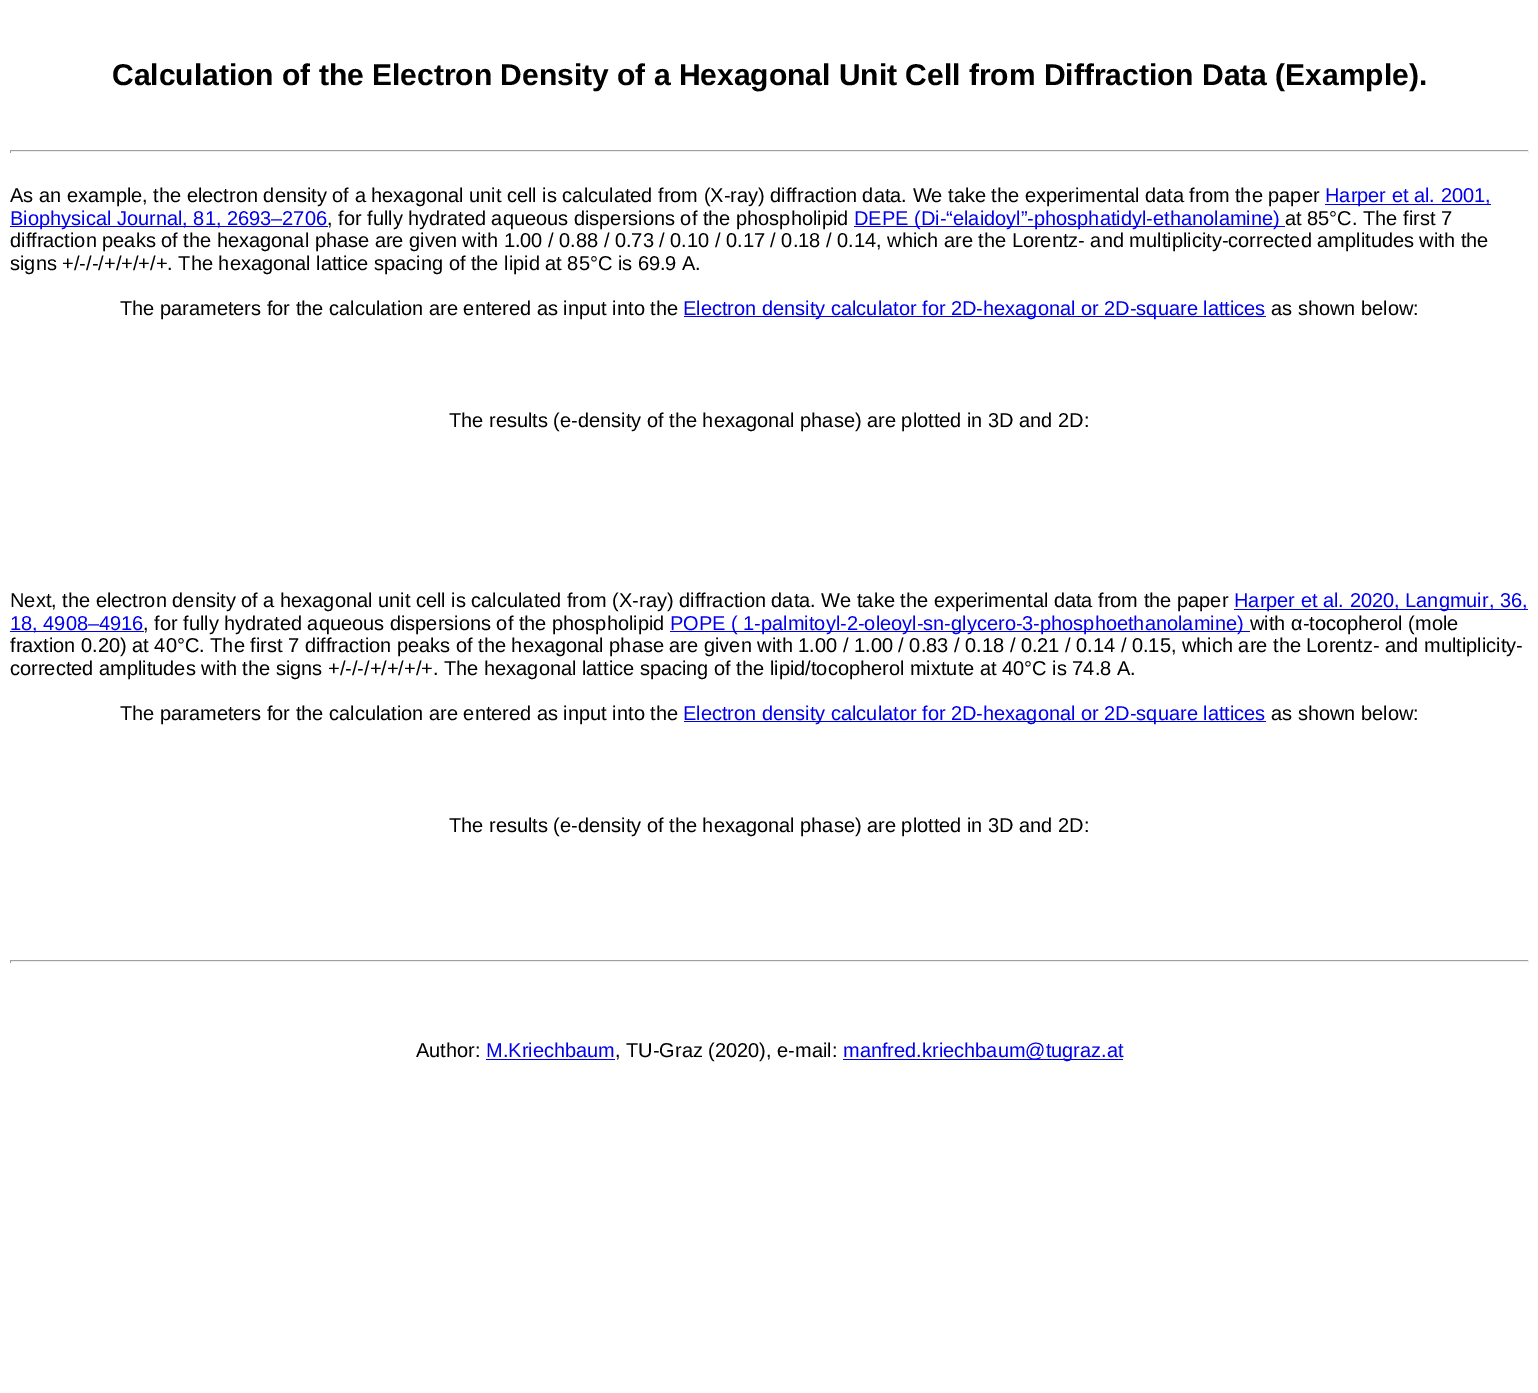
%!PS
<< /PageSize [1538 1393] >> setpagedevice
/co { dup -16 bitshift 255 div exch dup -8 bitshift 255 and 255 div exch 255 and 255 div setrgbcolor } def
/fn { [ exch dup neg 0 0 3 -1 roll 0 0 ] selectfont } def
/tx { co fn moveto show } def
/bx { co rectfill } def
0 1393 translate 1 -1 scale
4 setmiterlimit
0 0 1538 1393 16#FFFFFF bx
10 150 1519 1 16#9F9F9F bx
1528 150 1 3 16#EEEEEE bx
10 151 1519 1 16#EEEEEE bx
10 150 1 3 16#9F9F9F bx
1325 204 166 1 16#0000EE bx
10 226 318 1 16#0000EE bx
854 226 431 1 16#0000EE bx
684 316 582 1 16#0000EE bx
1234 609 294 1 16#0000EE bx
10 631 134 1 16#0000EE bx
670 631 580 1 16#0000EE bx
684 721 582 1 16#0000EE bx
10 960 1519 1 16#9F9F9F bx
1528 960 1 3 16#EEEEEE bx
10 961 1519 1 16#EEEEEE bx
10 960 1 3 16#9F9F9F bx
486 1059 129 1 16#0000EE bx
843 1059 280 1 16#0000EE bx
(Calculation of the Electron Density of a Hexagonal Unit Cell from Diffraction Data \(Example\).) 112 85 /LiberationSans-Bold 30 16#000000 tx
(As an example, the electron density of a hexagonal unit cell is calculated from \(X-ray\) diffraction data. We take the experimental data from the paper) 10 202 /LiberationSans-Regular 20 16#000000 tx
(Harper et al. 2001,) 1325 202 /LiberationSans-Regular 20 16#0000EE tx
(Biophysical Journal, 81, 2693–2706) 10 225 /LiberationSans-Regular 20 16#0000EE tx
(, for fully hydrated aqueous dispersions of the phospholipid) 327 225 /LiberationSans-Regular 20 16#000000 tx
(DEPE \(Di-“elaidoyl”-phosphatidyl-ethanolamine\)) 854 225 /LiberationSans-Regular 20 16#0000EE tx
(at 85°C. The first 7) 1285 225 /LiberationSans-Regular 20 16#000000 tx
(diffraction peaks of the hexagonal phase are given with 1.00 / 0.88 / 0.73 / 0.10 / 0.17 / 0.18 / 0.14, which are the Lorentz- and multiplicity-corrected amplitudes with the) 10 247 /LiberationSans-Regular 20 16#000000 tx
(signs +/-/-/+/+/+/+. The hexagonal lattice spacing of the lipid at 85°C is 69.9 A.) 10 270 /LiberationSans-Regular 20 16#000000 tx
(The parameters for the calculation are entered as input into the) 120 315 /LiberationSans-Regular 20 16#000000 tx
(Electron density calculator for 2D-hexagonal or 2D-square lattices) 683 315 /LiberationSans-Regular 20 16#0000EE tx
(as shown below:) 1271 315 /LiberationSans-Regular 20 16#000000 tx
(The results \(e-density of the hexagonal phase\) are plotted in 3D and 2D:) 449 427 /LiberationSans-Regular 20 16#000000 tx
(Next, the electron density of a hexagonal unit cell is calculated from \(X-ray\) diffraction data. We take the experimental data from the paper) 10 607 /LiberationSans-Regular 20 16#000000 tx
(Harper et al. 2020, Langmuir, 36,) 1234 607 /LiberationSans-Regular 20 16#0000EE tx
(18, 4908–4916) 10 630 /LiberationSans-Regular 20 16#0000EE tx
(, for fully hydrated aqueous dispersions of the phospholipid) 143 630 /LiberationSans-Regular 20 16#000000 tx
(POPE \( 1-palmitoyl-2-oleoyl-sn-glycero-3-phosphoethanolamine\)) 670 630 /LiberationSans-Regular 20 16#0000EE tx
(with α-tocopherol \(mole) 1250 630 /LiberationSans-Regular 20 16#000000 tx
(fraxtion 0.20\) at 40°C. The first 7 diffraction peaks of the hexagonal phase are given with 1.00 / 1.00 / 0.83 / 0.18 / 0.21 / 0.14 / 0.15, which are the Lorentz- and multiplicity-) 10 652 /LiberationSans-Regular 20 16#000000 tx
(corrected amplitudes with the signs +/-/-/+/+/+/+. The hexagonal lattice spacing of the lipid/tocopherol mixtute at 40°C is 74.8 A.) 10 675 /LiberationSans-Regular 20 16#000000 tx
(The parameters for the calculation are entered as input into the) 120 720 /LiberationSans-Regular 20 16#000000 tx
(Electron density calculator for 2D-hexagonal or 2D-square lattices) 683 720 /LiberationSans-Regular 20 16#0000EE tx
(as shown below:) 1271 720 /LiberationSans-Regular 20 16#000000 tx
(The results \(e-density of the hexagonal phase\) are plotted in 3D and 2D:) 449 832 /LiberationSans-Regular 20 16#000000 tx
(Author:) 416 1057 /LiberationSans-Regular 20 16#000000 tx
(M.Kriechbaum) 486 1057 /LiberationSans-Regular 20 16#0000EE tx
(, TU-Graz \(2020\), e-mail:) 615 1057 /LiberationSans-Regular 20 16#000000 tx
(manfred.kriechbaum@tugraz.at) 843 1057 /LiberationSans-Regular 20 16#0000EE tx
showpage
